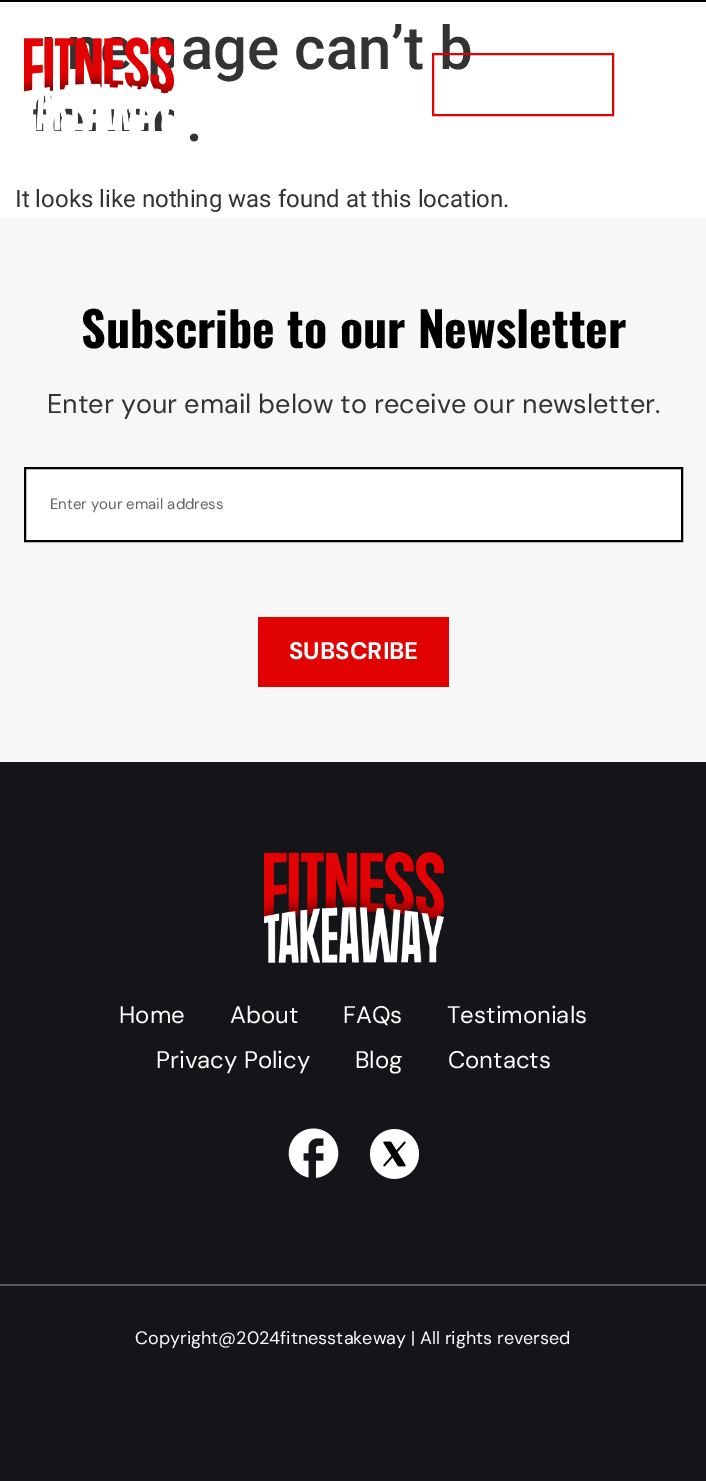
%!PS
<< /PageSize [706 1481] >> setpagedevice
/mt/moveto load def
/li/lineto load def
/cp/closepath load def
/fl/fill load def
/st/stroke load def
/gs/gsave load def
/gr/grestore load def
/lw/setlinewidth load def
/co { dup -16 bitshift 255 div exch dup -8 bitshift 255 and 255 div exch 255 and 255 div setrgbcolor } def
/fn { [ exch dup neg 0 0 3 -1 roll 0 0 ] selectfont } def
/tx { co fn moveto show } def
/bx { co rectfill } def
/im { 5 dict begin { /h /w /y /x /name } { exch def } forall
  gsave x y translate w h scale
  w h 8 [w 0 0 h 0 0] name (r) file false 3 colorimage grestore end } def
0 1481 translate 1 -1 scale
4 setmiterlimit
0 0 706 1481 16#FFFFFF bx
0 0 706 2 16#000000 bx
(media/1.raw) 24 37 150 94 im
0 218 706 544 16#F7F7F7 bx
16#FFFFFF co
25 468 mt 682 468 li 682 541 li 25 541 li cp gs fl gr
16#000000 co
2 lw
st
258 617 191 70 16#E10202 bx
0 762 706 522 16#141518 bx
(media/2.raw) 264 852 180 111 im
(media/3.raw) 288 1128 51 50 im
(media/4.raw) 370 1129 49 50 im
0 1286 706 195 16#141518 bx
0 1284 706 2 16#5A5B5D bx
(age can’t b) 181 69 /Roboto-Medium 60 16#333333 tx
16#E10202 co
433 54 180 61 rectstroke
(.) 186 141 /Roboto-Medium 60 16#333333 tx
(It looks like nothing was found at this location.) 15 207 /Roboto-Regular 24 16#333333 tx
(Subscribe to our Newsletter) 81 348 /Oswald-Bold 48 16#000000 tx
(Enter your email below to receive our newsletter.) 47 413 /DMSans-Regular 27 16#333333 tx
(Enter your email address) 50 509 /DMSans-Regular 15 16#666666 tx
(SUBSCRIBE) 289 659 /DMSans-Bold 24 16#FFFFFF tx
(Home) 119 1023 /DMSans-Regular 24 16#FFFFFF tx
(About) 230 1023 /DMSans-Regular 24 16#FFFFFF tx
(FAQs) 343 1023 /DMSans-Regular 24 16#FFFFFF tx
(Testimonials) 447 1023 /DMSans-Regular 24 16#FFFFFF tx
(Privacy Policy) 156 1068 /DMSans-Regular 24 16#FFFFFF tx
(Blog) 355 1068 /DMSans-Regular 24 16#FFFFFF tx
(Contacts) 448 1068 /DMSans-Regular 24 16#FFFFFF tx
(Copyright@2024fitnesstakeway | All rights reversed) 135 1344 /DMSans-Regular 18 16#FFFFFF tx
showpage
